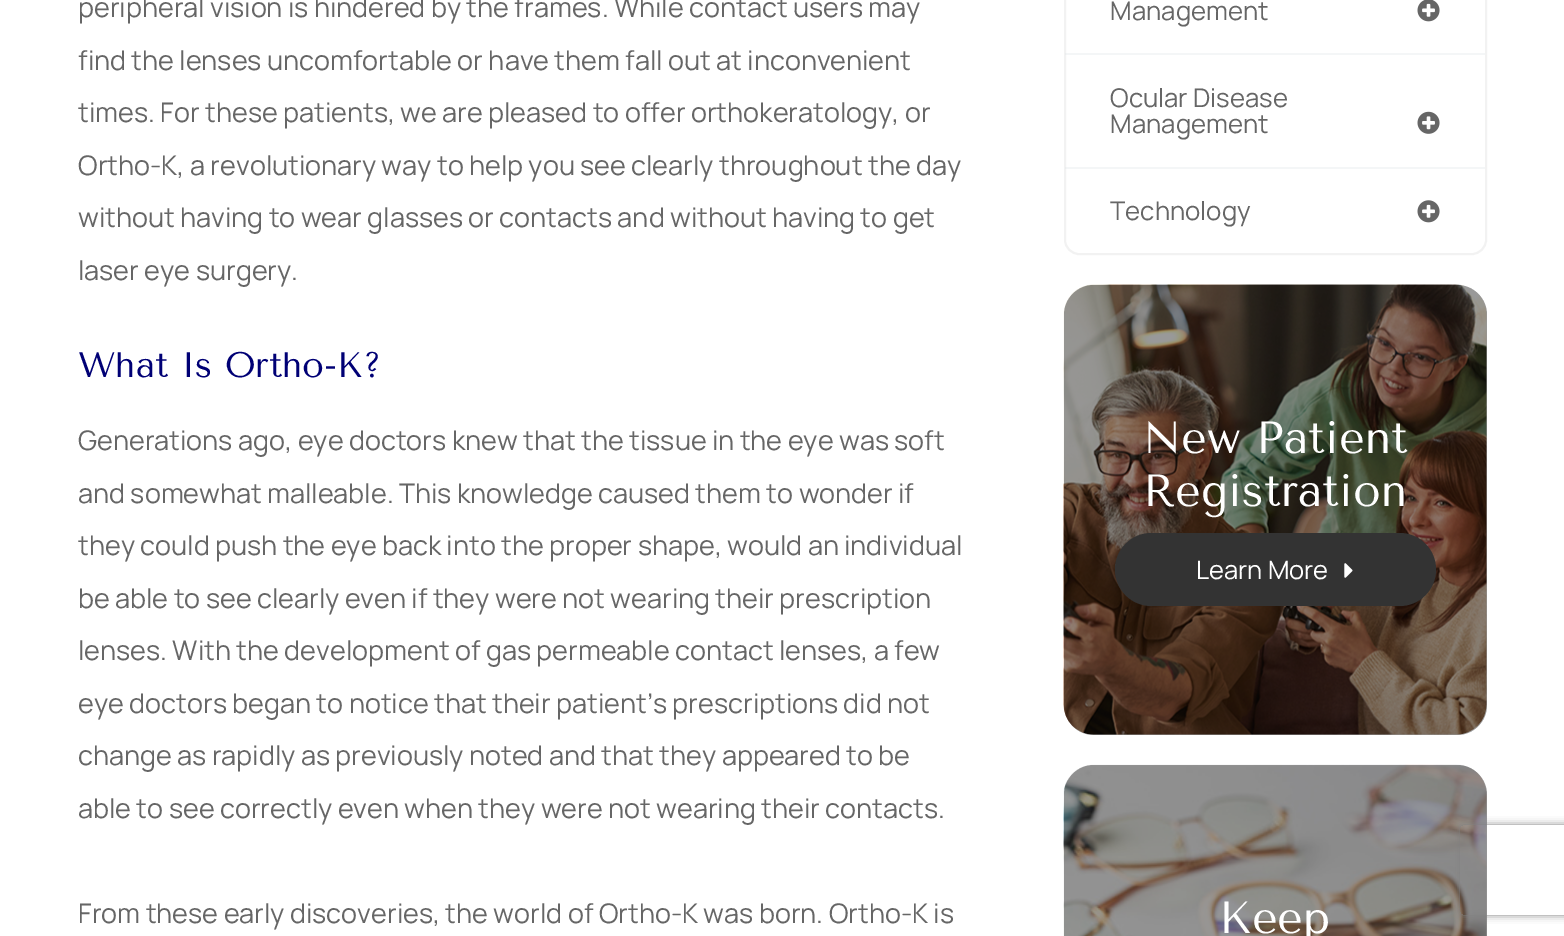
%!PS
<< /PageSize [1564 936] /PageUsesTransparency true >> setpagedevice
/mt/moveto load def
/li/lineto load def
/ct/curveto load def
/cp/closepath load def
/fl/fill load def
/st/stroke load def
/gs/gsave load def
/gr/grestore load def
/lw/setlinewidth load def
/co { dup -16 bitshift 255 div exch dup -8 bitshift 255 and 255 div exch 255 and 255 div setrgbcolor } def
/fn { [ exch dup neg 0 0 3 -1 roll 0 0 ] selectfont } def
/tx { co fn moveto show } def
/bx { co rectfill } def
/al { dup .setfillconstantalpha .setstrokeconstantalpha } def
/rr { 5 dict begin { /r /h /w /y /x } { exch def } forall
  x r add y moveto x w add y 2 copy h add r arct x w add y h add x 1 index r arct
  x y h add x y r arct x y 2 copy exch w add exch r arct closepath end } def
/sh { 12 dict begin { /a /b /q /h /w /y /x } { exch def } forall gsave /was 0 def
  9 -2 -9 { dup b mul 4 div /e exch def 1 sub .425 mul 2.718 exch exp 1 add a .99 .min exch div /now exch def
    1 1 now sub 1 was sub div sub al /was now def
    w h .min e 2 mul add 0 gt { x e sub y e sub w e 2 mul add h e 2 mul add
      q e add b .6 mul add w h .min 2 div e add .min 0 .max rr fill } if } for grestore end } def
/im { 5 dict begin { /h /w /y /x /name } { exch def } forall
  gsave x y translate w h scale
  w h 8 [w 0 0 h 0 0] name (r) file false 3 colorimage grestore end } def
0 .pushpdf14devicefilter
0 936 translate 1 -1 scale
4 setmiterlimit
0 0 1564 936 16#FFFFFF bx
16#F2F2F2 co
2 lw
1065 -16 mt 1486 -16 li 1486 240 li 1486 247.5 1479.5 254 1472 254 ct 1079 254 li 1071.5 254 1065 247.5 1065 240 ct cp st
0.3 al
1065 53 420 2 16#DBE1E6 bx
1 al
(media/1.raw) 1417 0 23 22 im
0.3 al
1065 167 420 2 16#DBE1E6 bx
1 al
(media/2.raw) 1417 111 23 23 im
(media/3.raw) 1417 200 23 23 im
(media/4.raw) 1063 284 424 451 im
0.4 al
16#000000 co
1064 285 423 450 30 rr fl
1 al
16#333333 co
1115 533 321 73 36.5 rr fl
(media/5.raw) 1344 563 9 15 im
(media/6.raw) 1063 764 424 172 im
0.4 al
16#000000 co
1064 765 423 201 30 rr fl
gs
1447 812 mt 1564 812 li 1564 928 li 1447 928 li cp 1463 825 mt 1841 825 li 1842.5 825 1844 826.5 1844 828 ct 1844 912 li 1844 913.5 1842.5 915 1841 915 ct 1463 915 li 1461.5 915 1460 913.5 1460 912 ct 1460 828 li 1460 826.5 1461.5 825 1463 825 ct cp eoclip newpath
1 al
16#808080 co
1460 825 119 90 3 4 1 sh
gr
1 al
(peripheral vision is hindered by the frames. While contact users may) 78 17 /Manrope-Regular 27 16#666666 tx
(find the lenses uncomfortable or have them fall out at inconvenient) 78 70 /Manrope-Regular 27 16#666666 tx
(times. For these patients, we are pleased to offer orthokeratology, or) 78 122 /Manrope-Regular 27 16#666666 tx
(Ortho-K, a revolutionary way to help you see clearly throughout the day) 78 175 /Manrope-Regular 27 16#666666 tx
(without having to wear glasses or contacts and without having to get) 78 227 /Manrope-Regular 27 16#666666 tx
(laser eye surgery.) 78 280 /Manrope-Regular 27 16#666666 tx
(What Is Ortho-K?) 78 377 /TenorSans-Regular 35.5 16#000075 tx
(Generations ago, eye doctors knew that the tissue in the eye was soft) 78 450 /Manrope-Regular 27 16#666666 tx
(and somewhat malleable. This knowledge caused them to wonder if) 78 503 /Manrope-Regular 27 16#666666 tx
(they could push the eye back into the proper shape, would an individual) 78 555 /Manrope-Regular 27 16#666666 tx
(be able to see clearly even if they were not wearing their prescription) 78 608 /Manrope-Regular 27 16#666666 tx
(lenses. With the development of gas permeable contact lenses, a few) 78 660 /Manrope-Regular 27 16#666666 tx
(eye doctors began to notice that their patient’s prescriptions did not) 78 713 /Manrope-Regular 27 16#666666 tx
(change as rapidly as previously noted and that they appeared to be) 78 765 /Manrope-Regular 27 16#666666 tx
(able to see correctly even when they were not wearing their contacts.) 78 818 /Manrope-Regular 27 16#666666 tx
(From these early discoveries, the world of Ortho-K was born. Ortho-K is) 78 923 /Manrope-Regular 27 16#666666 tx
(Management) 1110 20 /Manrope-Regular 25.75 16#666666 tx
(Ocular Disease) 1110 107 /Manrope-Regular 25.75 16#666666 tx
(Management) 1110 133 /Manrope-Regular 25.75 16#666666 tx
(Technology) 1110 220 /Manrope-Regular 25.75 16#666666 tx
(New Patient) 1143 453 /TenorSans-Regular 45 16#FFFFFF tx
(Registration) 1143 506 /TenorSans-Regular 45 16#FFFFFF tx
(Learn More) 1196 579 /Manrope-Regular 25.5 16#FFFFFF tx
(Keep) 1219 933 /TenorSans-Regular 45 16#FFFFFF tx
.poppdf14devicefilter showpage
